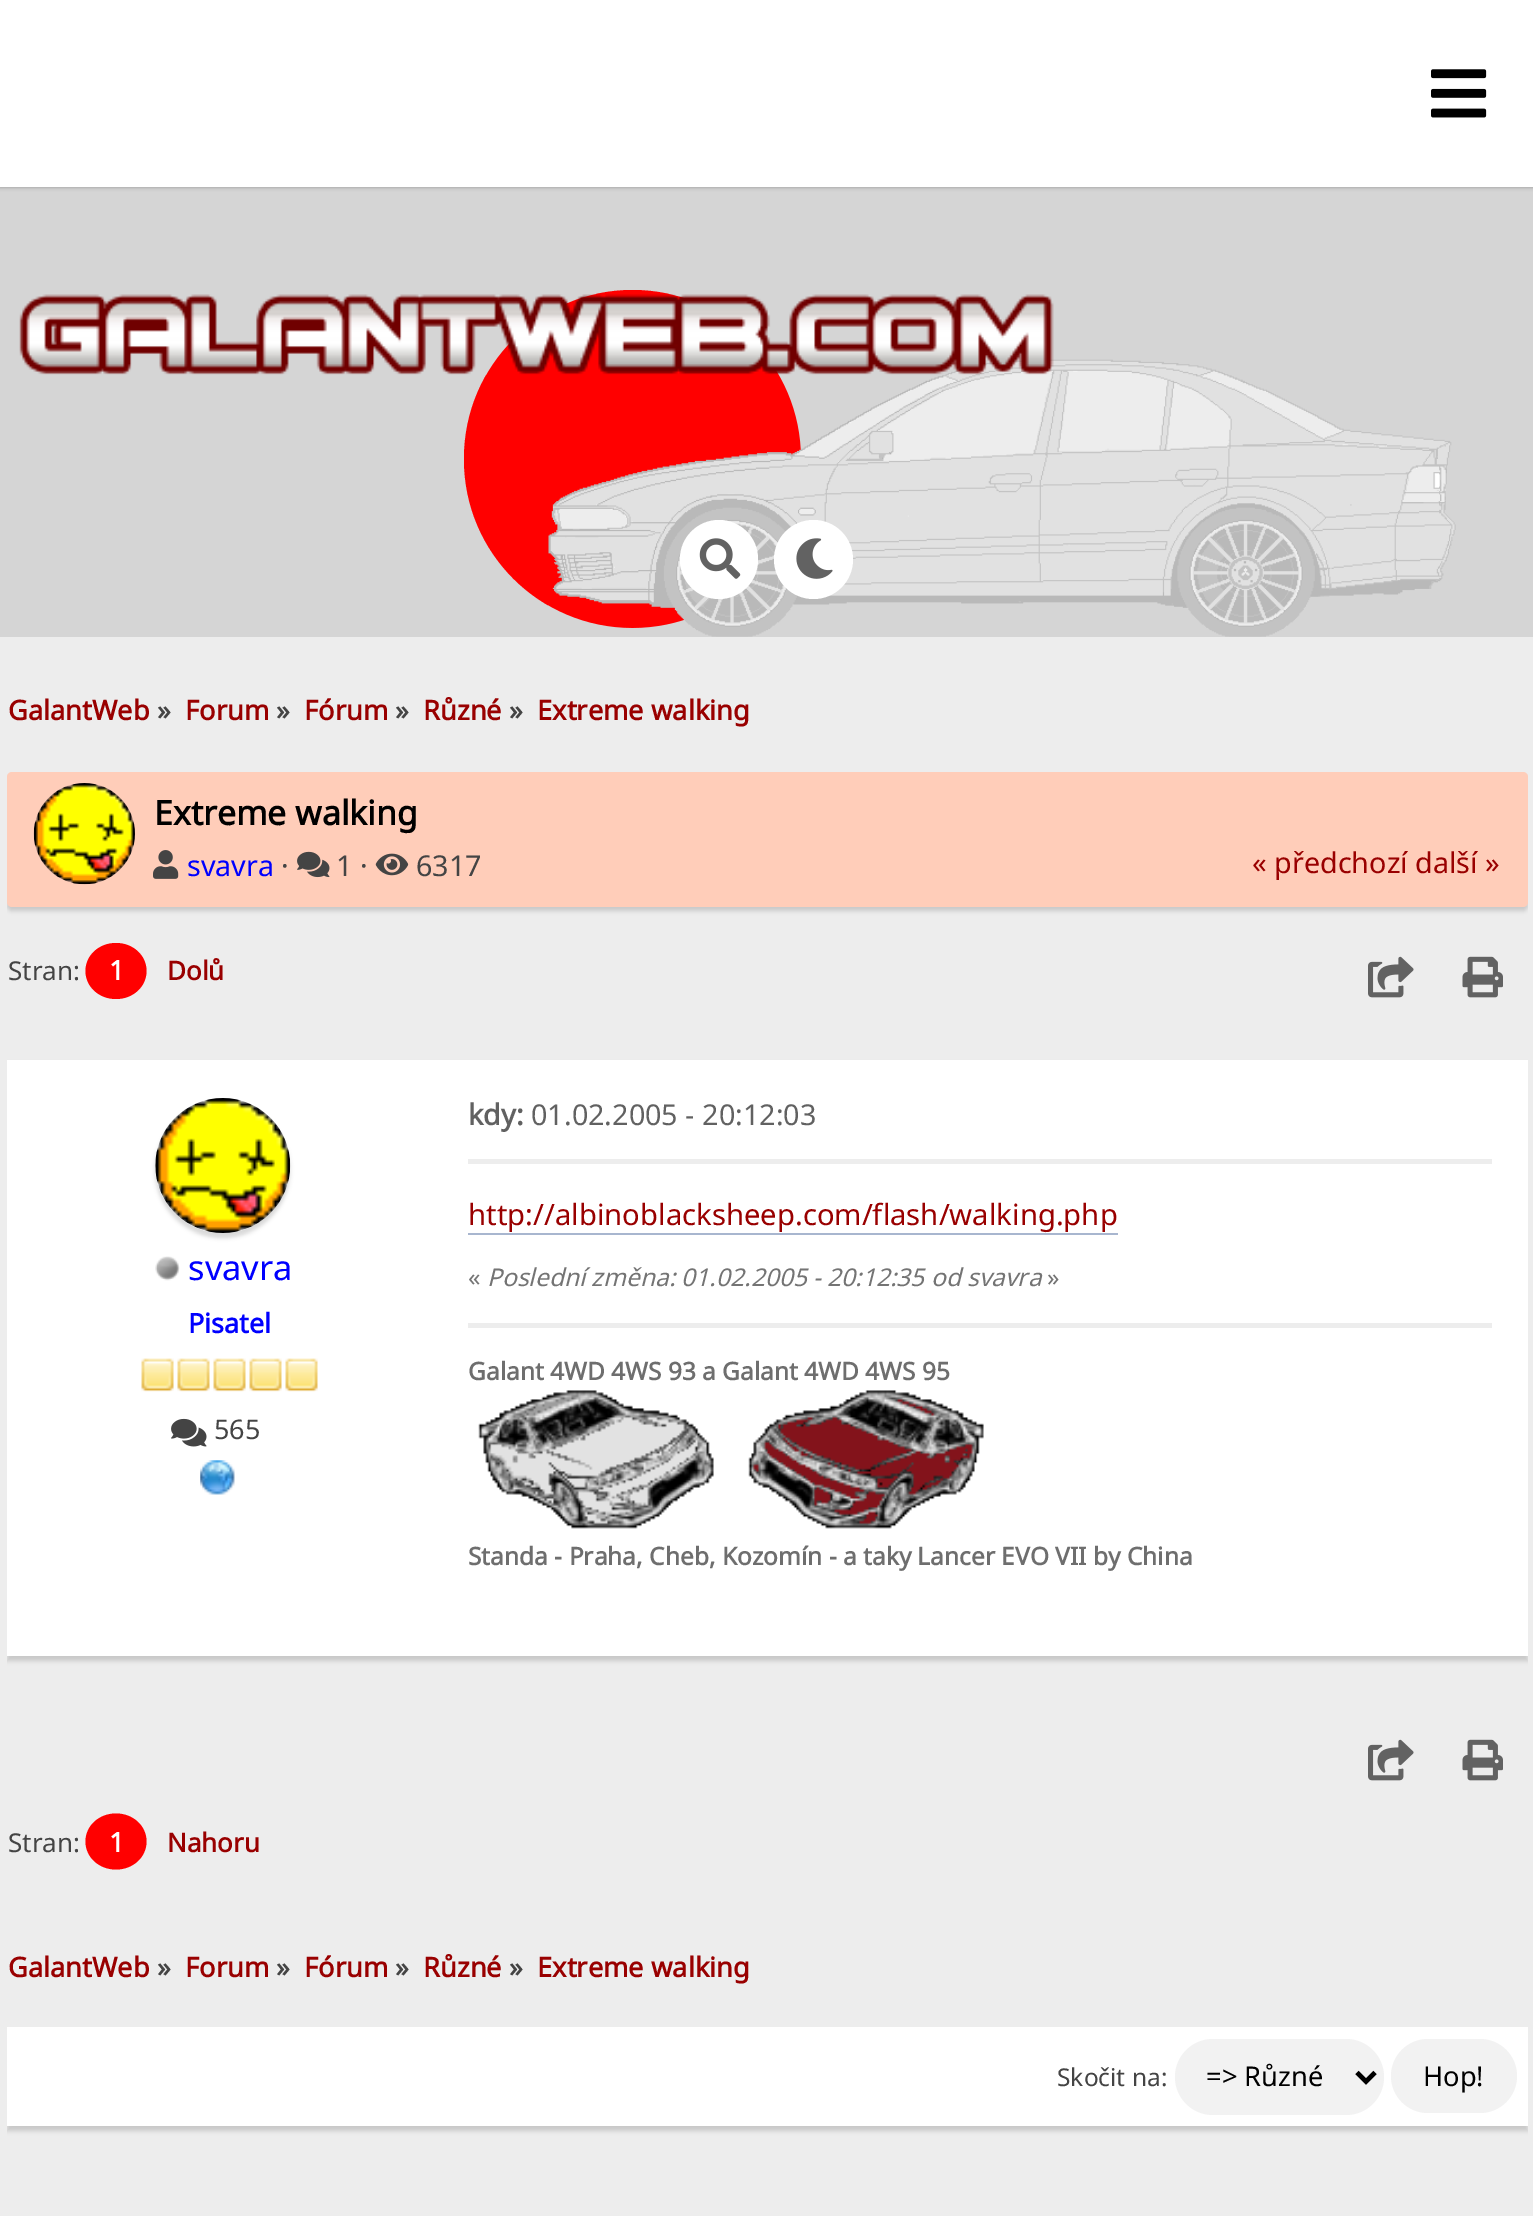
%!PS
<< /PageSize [1533 2216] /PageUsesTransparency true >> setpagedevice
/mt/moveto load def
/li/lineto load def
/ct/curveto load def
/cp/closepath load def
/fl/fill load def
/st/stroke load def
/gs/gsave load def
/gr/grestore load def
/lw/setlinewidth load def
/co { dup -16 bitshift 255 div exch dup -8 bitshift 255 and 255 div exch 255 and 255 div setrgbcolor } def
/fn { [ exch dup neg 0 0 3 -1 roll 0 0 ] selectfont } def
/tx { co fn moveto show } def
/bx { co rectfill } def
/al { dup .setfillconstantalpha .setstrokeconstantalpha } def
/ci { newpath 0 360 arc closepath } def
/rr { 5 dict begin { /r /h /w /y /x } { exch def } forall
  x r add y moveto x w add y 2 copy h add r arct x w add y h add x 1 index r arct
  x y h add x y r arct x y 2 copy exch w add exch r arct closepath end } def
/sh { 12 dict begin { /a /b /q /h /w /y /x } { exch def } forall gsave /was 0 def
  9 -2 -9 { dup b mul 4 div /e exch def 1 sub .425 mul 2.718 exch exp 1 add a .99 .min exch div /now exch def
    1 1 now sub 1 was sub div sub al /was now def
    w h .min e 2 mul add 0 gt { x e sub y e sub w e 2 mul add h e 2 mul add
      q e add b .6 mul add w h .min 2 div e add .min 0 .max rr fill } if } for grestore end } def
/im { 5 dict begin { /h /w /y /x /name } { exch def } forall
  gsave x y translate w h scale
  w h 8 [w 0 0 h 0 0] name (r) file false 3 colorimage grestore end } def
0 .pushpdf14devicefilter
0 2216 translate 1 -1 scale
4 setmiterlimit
0 0 1533 2216 16#EDEDED bx
0 187 1533 450 16#D5D5D5 bx
16#000000 co
0 0 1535 187 0 2 .33 sh
0 0 1533 187 16#FFFFFF bx
(media/1.raw) 1431 69 56 49 im
16#FF0000 co
464 290 337 338 168.5 rr fl
(media/2.raw) 548 359 908 278 im
(media/3.raw) 19 294 1035 81 im
16#FFFFFF co
680 520 78 79 39 rr fl
(media/4.raw) 699 538 42 41 im
813.5 559.5 39.5 ci fl
(media/5.raw) 796 538 37 41 im
gs
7 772 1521 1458 rectclip
16#000000 co
7 776 1521 135 5 2 .15 sh
gr
16#FFCDB9 co
7 772 1521 135 5 rr fl
(media/6.raw) 33 783 102 102 im
(media/7.raw) 153 850 26 29 im
(media/8.raw) 297 851 33 27 im
(media/9.raw) 375 853 34 23 im
16#FF0000 co
116 943 mt 133 943 146.5 955.5 146.5 971 ct 146.5 986.5 133 999 116 999 ct 99 999 85.5 986.5 85.5 971 ct 85.5 955.5 99 943 116 943 ct cp fl
(media/10.raw) 1368 956 46 42 im
(media/11.raw) 1462 956 41 42 im
gs
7 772 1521 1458 rectclip
16#000000 co
7 1064 1521 597 0 2 .15 sh
gr
7 1060 1521 596 16#FFFFFF bx
16#000000 co
155 1103 135 135 67.5 2 .15 sh
16#FFFFFF co
222.5 1165.5 67.5 ci fl
(media/12.raw) 155 1098 136 135 im
(media/13.raw) 155 1256 25 25 im
(media/14.raw) 141 1358 33 34 im
(media/15.raw) 177 1358 33 34 im
(media/15.raw) 213 1358 33 34 im
(media/14.raw) 249 1358 33 34 im
(media/15.raw) 285 1358 33 34 im
(media/16.raw) 171 1418 36 29 im
(media/17.raw) 200 1460 35 35 im
468 1159 1024 5 16#EDEDED bx
468 1233 650 2 16#A8B6CF bx
468 1323 1024 5 16#EDEDED bx
(media/18.raw) 478 1390 236 139 im
(media/19.raw) 748 1390 236 139 im
(media/10.raw) 1368 1739 46 42 im
(media/11.raw) 1462 1739 41 42 im
16#FF0000 co
116 1813.5 mt 133 1813.5 146.5 1826 146.5 1841.5 ct 146.5 1857 133 1869.5 116 1869.5 ct 99 1869.5 85.5 1857 85.5 1841.5 ct 85.5 1826 99 1813.5 116 1813.5 ct cp fl
gs
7 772 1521 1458 rectclip
16#000000 co
7 2032 1521 99 0 2 .15 sh
gr
7 2027 1521 99 16#FFFFFF bx
16#F2F2F2 co
1175 2039 209 76 38 rr fl
16#000000 co
4.5 lw
1357 2072.5 mt 1366 2081.5 li 1375 2072.5 li st
16#F2F2F2 co
1391 2039 126 74 37 rr fl
(GalantWeb) 8 720 /NotoSans-Bold 27.25 16#990000 tx
(») 157 720 /NotoSans-Bold 27.25 16#444444 tx
(Forum) 185 720 /NotoSans-Bold 27.25 16#990000 tx
(») 276 720 /NotoSans-Bold 27.25 16#444444 tx
(Fórum) 304 720 /NotoSans-Bold 27.25 16#990000 tx
(») 395 720 /NotoSans-Bold 27.25 16#444444 tx
(Různé) 423 720 /NotoSans-Bold 27.25 16#990000 tx
(») 509 720 /NotoSans-Bold 27.25 16#444444 tx
(Extreme walking) 537 720 /NotoSans-Bold 27.25 16#990000 tx
(Extreme walking) 154 825 /NotoSans-Bold 33.75 16#000000 tx
(svavra) 187 876 /NotoSans-Regular 28.75 16#0000FF tx
(·) 281 876 /NotoSans-Regular 28.75 16#444444 tx
(1 ·) 336 876 /NotoSans-Regular 28.75 16#444444 tx
(6317) 416 876 /NotoSans-Regular 28.75 16#444444 tx
(« předchozí další ») 1252 873 /NotoSans-Regular 28.75 16#990000 tx
(Stran:) 8 980 /NotoSans-Regular 26 16#444444 tx
(1) 109 980 /NotoSans-Bold 27 16#FFFFFF tx
(Dolů) 167 980 /NotoSans-Bold 26 16#990000 tx
(svavra) 188 1280 /NotoSans-Regular 34.5 16#0000FF tx
(Pisatel) 188 1333 /NotoSans-Bold 27 16#0000FF tx
(565) 214 1439 /NotoSans-Regular 27 16#444444 tx
(kdy:) 468 1125 /NotoSans-Bold 28.75 16#616161 tx
(01.02.2005 - 20:12:03) 531 1125 /NotoSans-Regular 28.75 16#616161 tx
(http://albinoblacksheep.com/flash/walking.php) 468 1225 /NotoSans-Regular 29.25 16#990000 tx
(«) 468 1286 /NotoSans-Regular 24.5 16#747474 tx
(Poslední změna: 01.02.2005 - 20:12:35 od svavra) 487 1286 /NotoSans-Italic 24.5 16#747474 tx
(») 1047 1286 /NotoSans-Regular 24.5 16#747474 tx
(Galant 4WD 4WS 93 a Galant 4WD 4WS 95) 468 1380 /NotoSans-Bold 24.5 16#6E6E6E tx
(Standa - Praha, Cheb, Kozomín - a taky Lancer EVO VII by China) 468 1565 /NotoSans-Bold 24.5 16#6E6E6E tx
(Stran:) 8 1852 /NotoSans-Regular 26 16#444444 tx
(1) 109 1852 /NotoSans-Bold 27 16#FFFFFF tx
(Nahoru) 167 1852 /NotoSans-Bold 26 16#990000 tx
(GalantWeb) 8 1977 /NotoSans-Bold 27.25 16#990000 tx
(») 157 1977 /NotoSans-Bold 27.25 16#444444 tx
(Forum) 185 1977 /NotoSans-Bold 27.25 16#990000 tx
(») 276 1977 /NotoSans-Bold 27.25 16#444444 tx
(Fórum) 304 1977 /NotoSans-Bold 27.25 16#990000 tx
(») 395 1977 /NotoSans-Bold 27.25 16#444444 tx
(Různé) 423 1977 /NotoSans-Bold 27.25 16#990000 tx
(») 509 1977 /NotoSans-Bold 27.25 16#444444 tx
(Extreme walking) 537 1977 /NotoSans-Bold 27.25 16#990000 tx
(Skočit na:) 1057 2086 /NotoSans-Regular 24.5 16#444444 tx
(=> Různé) 1206 2086 /NotoSans-Regular 27.25 16#000000 tx
(Hop!) 1423 2086 /NotoSans-Regular 27.25 16#000000 tx
.poppdf14devicefilter showpage
